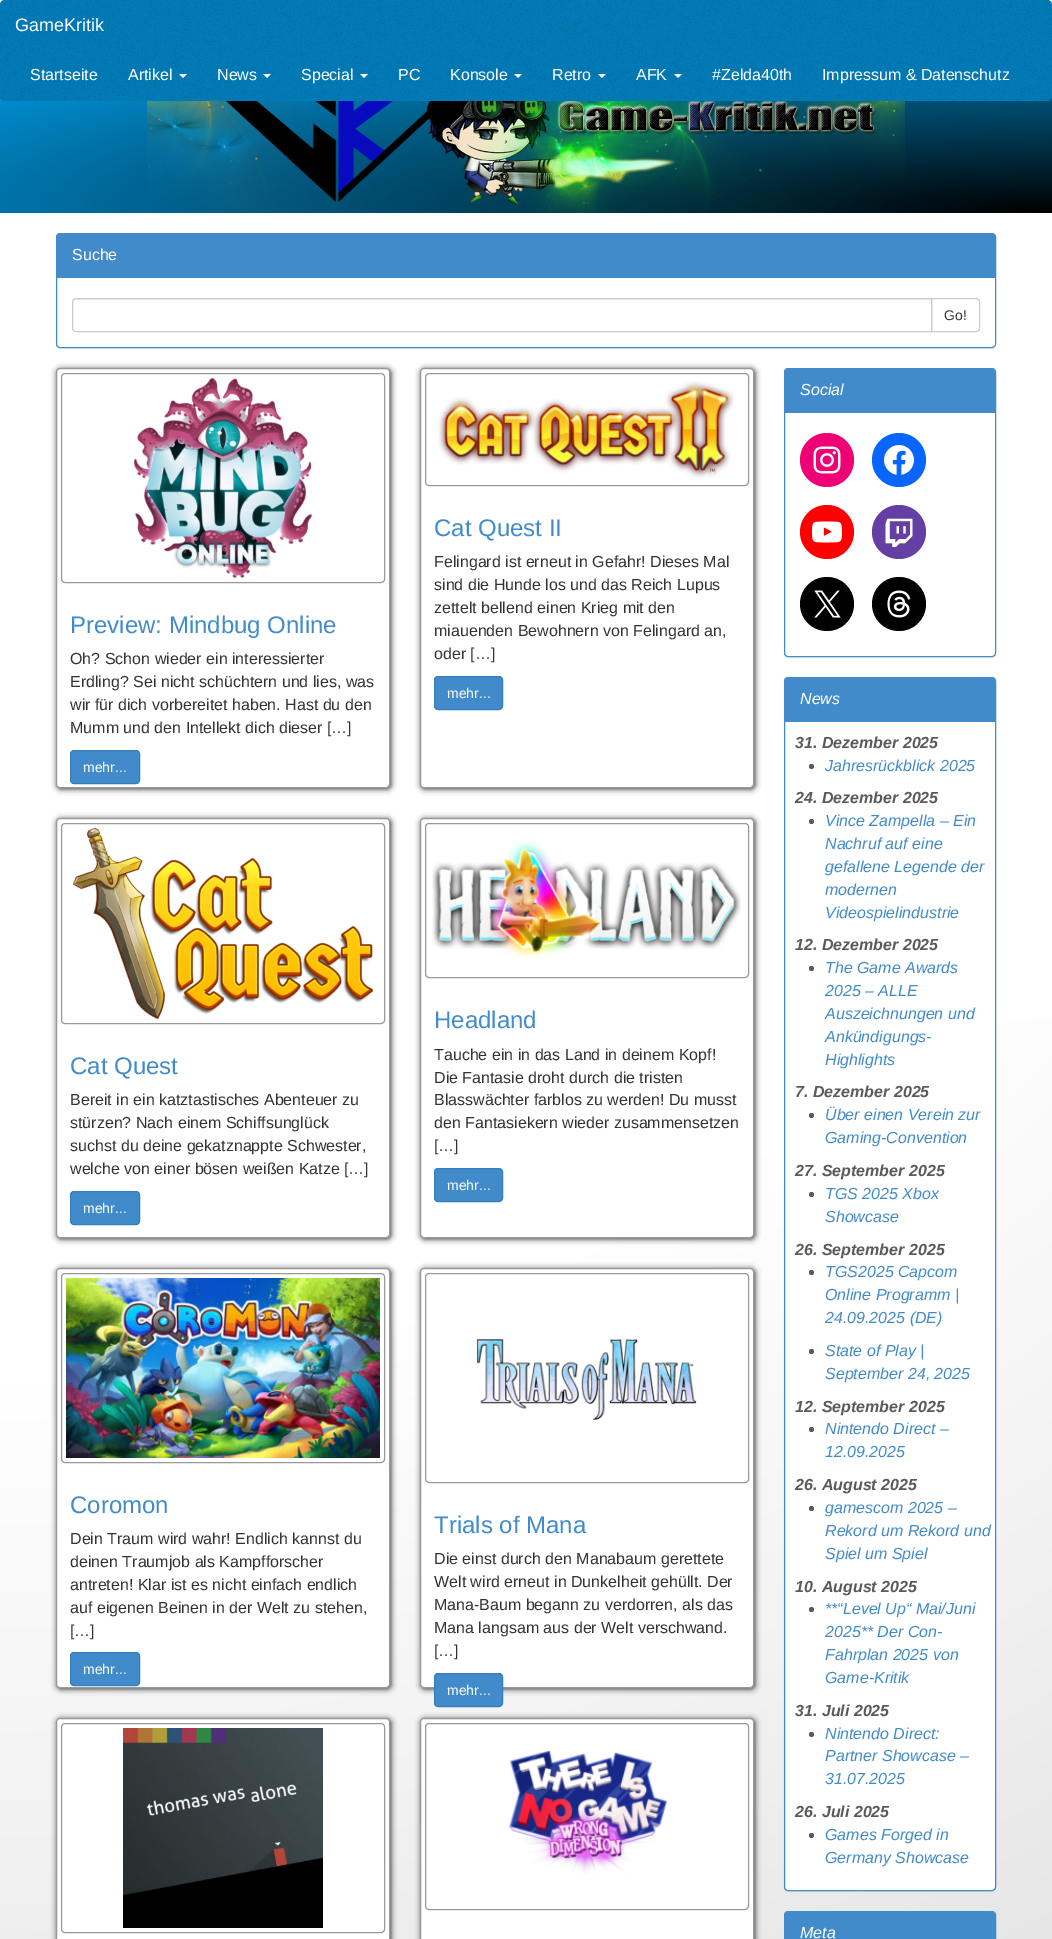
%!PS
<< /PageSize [1052 1939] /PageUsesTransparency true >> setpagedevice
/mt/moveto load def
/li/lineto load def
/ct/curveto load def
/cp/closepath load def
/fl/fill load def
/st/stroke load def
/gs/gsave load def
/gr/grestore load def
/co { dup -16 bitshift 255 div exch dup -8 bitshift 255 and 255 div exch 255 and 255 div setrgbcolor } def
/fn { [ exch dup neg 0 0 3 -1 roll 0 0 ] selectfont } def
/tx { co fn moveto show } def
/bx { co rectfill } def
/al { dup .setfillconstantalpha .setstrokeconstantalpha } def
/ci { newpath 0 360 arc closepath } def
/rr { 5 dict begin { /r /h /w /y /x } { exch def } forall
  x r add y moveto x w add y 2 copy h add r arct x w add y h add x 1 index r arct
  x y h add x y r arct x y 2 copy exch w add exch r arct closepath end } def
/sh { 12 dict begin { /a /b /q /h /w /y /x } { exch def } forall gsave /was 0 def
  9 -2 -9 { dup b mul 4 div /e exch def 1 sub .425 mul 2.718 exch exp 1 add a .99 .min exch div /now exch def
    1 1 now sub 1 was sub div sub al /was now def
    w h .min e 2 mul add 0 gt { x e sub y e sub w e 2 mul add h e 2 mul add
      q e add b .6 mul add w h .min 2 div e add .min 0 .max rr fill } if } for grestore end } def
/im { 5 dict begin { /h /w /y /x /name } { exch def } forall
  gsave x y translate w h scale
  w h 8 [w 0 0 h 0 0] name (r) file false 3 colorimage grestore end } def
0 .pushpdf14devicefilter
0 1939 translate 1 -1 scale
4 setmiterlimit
0 0 1052 1939 16#FFFFFF bx
gs 0 1019 mt 1052 1019 li 1052 1939 li 0 1939 li cp clip newpath 0 0 translate 2771 2771 scale
<< /ShadingType 3 /ColorSpace /DeviceRGB /Coords [0 0 0 0 0 1] /Extend [true true] /Function << /FunctionType 3 /Domain [0 1] /Functions [<< /FunctionType 2 /Domain [0 1] /C0 [1 1 1] /C1 [1 1 1] /N 1 >> << /FunctionType 2 /Domain [0 1] /C0 [1 1 1] /C1 [.839 .839 .839] /N 1 >>] /Bounds [.5] /Encode [0 1 0 1] >> >> shfill gr
gs 0 97 mt 1052 97 li 1052 213 li 0 213 li cp clip newpath 1052 213 translate 1488 231 scale
<< /ShadingType 3 /ColorSpace /DeviceRGB /Coords [0 0 0 0 0 1] /Extend [true true] /Function << /FunctionType 2 /Domain [0 1] /C0 [0 0 0] /C1 [0 .639 .937] /N 1 >> >> shfill gr
16#027AB6 co
4 0 mt 1048 0 li 1050 0 1052 2 1052 4 ct 1052 97 li 1052 99 1050 100 1048 100 ct 4 100 li 2 100 0 99 0 97 ct 0 4 li 0 2 2 0 4 0 ct cp fl
(media/1.raw) 0 0 1052 100 im
2 100 1048 1 16#027AB6 bx
16#FFFFFF co
179 74 mt 187 74 li 183 78 li cp fl
263 74 mt 271 74 li 267 78 li cp fl
360 74 mt 368 74 li 364 78 li cp fl
514 74 mt 522 74 li 518 78 li cp fl
598 74 mt 606 74 li 602 78 li cp fl
674 74 mt 682 74 li 678 78 li cp fl
(media/2.raw) 147 101 758 112 im
16#000000 co
56 234 940 115 4 .5 .05 sh
16#FFFFFF co
56.5 233.5 939 114 3.5 rr gs fl gr
16#428BCA co
st
60 234 mt 992 234 li 993.5 234 995 235.5 995 237 ct 995 278 li 57 278 li 57 237 li 57 235.5 58.5 234 60 234 ct cp fl
16#CCCCCC co
931.5 298.5 mt 976 298.5 li 978 298.5 979.5 300 979.5 302 ct 979.5 328 li 979.5 330 978 331.5 976 331.5 ct 931.5 331.5 li cp st
16#FFFFFF co
76 298 mt 932 298 li 932 332 li 76 332 li 74 332 72 330 72 328 ct 72 302 li 72 300 74 298 76 298 ct cp fl
16#ECECEC co
76 300 mt 931 300 li 931 299 li 76 299 li 74 299 73 301 73 303 ct 73 301 74 300 76 300 ct cp fl
16#CCCCCC co
76 298.5 mt 931.5 298.5 li 931.5 331.5 li 76 331.5 li 74 331.5 72.5 330 72.5 328 ct 72.5 302 li 72.5 300 74 298.5 76 298.5 ct cp st
16#292929 co
57 369 334 420 4 3 1 sh
16#FFFFFF co
56.5 368.5 333 419 3.5 rr gs fl gr
16#999999 co
st
61.5 373.5 323 209 3.5 rr st
(media/3.raw) 134 378 178 200 im
16#428BCA co
70.5 750.5 69 33 3.5 rr gs fl gr
16#357EBD co
st
16#292929 co
421 369 334 420 4 3 1 sh
16#FFFFFF co
420.5 368.5 333 419 3.5 rr gs fl gr
16#999999 co
st
425.5 373.5 323 112 3.5 rr st
(media/4.raw) 438 381 296 97 im
16#428BCA co
434.5 676.5 68 33 3.5 rr gs fl gr
16#357EBD co
st
16#292929 co
57 819 334 420 4 3 1 sh
16#FFFFFF co
56.5 818.5 333 419 3.5 rr gs fl gr
16#999999 co
st
61.5 823.5 323 200 3.5 rr st
(media/5.raw) 73 828 300 191 im
16#428BCA co
70.5 1191.5 69 33 3.5 rr gs fl gr
16#357EBD co
st
16#292929 co
421 819 334 420 4 3 1 sh
16#FFFFFF co
420.5 818.5 333 419 3.5 rr gs fl gr
16#999999 co
st
425.5 823.5 323 154 3.5 rr st
(media/6.raw) 432 840 309 119 im
16#428BCA co
434.5 1168.5 68 33 3.5 rr gs fl gr
16#357EBD co
st
16#292929 co
57 1269 334 420 4 3 1 sh
16#FFFFFF co
56.5 1268.5 333 419 3.5 rr gs fl gr
16#999999 co
st
61.5 1273.5 323 189 3.5 rr st
(media/7.raw) 66 1278 314 180 im
16#428BCA co
70.5 1652.5 69 33 3.5 rr gs fl gr
16#357EBD co
st
16#292929 co
421 1269 334 420 4 3 1 sh
16#FFFFFF co
420.5 1268.5 333 419 3.5 rr gs fl gr
16#999999 co
st
425.5 1273.5 323 209 3.5 rr st
(media/8.raw) 476 1339 221 82 im
16#428BCA co
434.5 1673.5 68 33 3.5 rr gs fl gr
16#357EBD co
st
16#292929 co
57 1719 334 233 4 3 1 sh
16#FFFFFF co
56.5 1718.5 333 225 3.5 rr gs fl gr
16#999999 co
st
61.5 1723.5 323 209 3.5 rr st
(media/9.raw) 123 1728 200 200 im
16#292929 co
421 1719 334 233 4 3 1 sh
16#FFFFFF co
420.5 1718.5 333 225 3.5 rr gs fl gr
16#999999 co
st
425.5 1723.5 323 186 3.5 rr st
(media/10.raw) 509 1750 159 124 im
16#000000 co
784 369 212 289 4 .5 .05 sh
16#FFFFFF co
784.5 368.5 211 288 3.5 rr gs fl gr
16#428BCA co
st
788 369 mt 992 369 li 993.5 369 995 370.5 995 372 ct 995 413 li 785 413 li 785 372 li 785 370.5 786.5 369 788 369 ct cp fl
16#F00075 co
827 460 27 ci fl
(media/11.raw) 813 446 28 28 im
16#0866FF co
899 460 27 ci fl
(media/12.raw) 884 445 30 30 im
16#FF0000 co
827 532 27 ci fl
(media/13.raw) 812 521 30 22 im
16#6440A4 co
899 532 27 ci fl
(media/14.raw) 885 518 28 29 im
16#000000 co
827 604 27 ci fl
(media/15.raw) 814 590 27 28 im
899 604 27 ci fl
(media/16.raw) 887 590 24 28 im
784 678 212 1214 4 .5 .05 sh
16#FFFFFF co
784.5 677.5 211 1213 3.5 rr gs fl gr
16#428BCA co
st
788 678 mt 992 678 li 993.5 678 995 679.5 995 681 ct 995 722 li 785 722 li 785 681 li 785 679.5 786.5 678 788 678 ct cp fl
16#5A5A5A co
811.5 766.5 2.5 ci fl
811.5 821.5 2.5 ci fl
811.5 968.5 2.5 ci fl
811.5 1115.5 2.5 ci fl
811.5 1194.5 2.5 ci fl
811.5 1272.5 2.5 ci fl
811.5 1351.5 2.5 ci fl
811.5 1429.5 2.5 ci fl
811.5 1508.5 2.5 ci fl
811.5 1609.5 2.5 ci fl
811.5 1734.5 2.5 ci fl
811.5 1835.5 2.5 ci fl
16#428BCA co
784.5 1911.5 211 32 3.5 rr st
788 1912 mt 992 1912 li 993.5 1912 995 1913.5 995 1915 ct 995 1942 li 785 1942 li 785 1915 li 785 1913.5 786.5 1912 788 1912 ct cp fl
(GameKritik) 15 31 /LiberationSans-Regular 18 16#FFFFFF tx
(Startseite) 30 80 /LiberationSans-Regular 16 16#FFFFFF tx
(Artikel) 128 80 /LiberationSans-Regular 16 16#FFFFFF tx
(News) 217 80 /LiberationSans-Regular 16 16#FFFFFF tx
(Special) 301 80 /LiberationSans-Regular 16 16#FFFFFF tx
(PC) 398 80 /LiberationSans-Regular 16 16#FFFFFF tx
(Konsole) 450 80 /LiberationSans-Regular 16 16#FFFFFF tx
(Retro) 552 80 /LiberationSans-Regular 16 16#FFFFFF tx
(AFK) 636 80 /LiberationSans-Regular 16 16#FFFFFF tx
(#Zelda40th) 712 80 /LiberationSans-Regular 16 16#FFFFFF tx
(Impressum & Datenschutz) 822 80 /LiberationSans-Regular 16 16#FFFFFF tx
(Suche) 72 260 /LiberationSans-Regular 16 16#FFFFFF tx
(Go!) 944 320 /LiberationSans-Regular 14 16#333333 tx
(Preview: Mindbug Online) 70 633 /LiberationSans-Regular 24 16#428BCA tx
(Oh? Schon wieder ein interessierter) 70 664 /LiberationSans-Regular 16 16#333333 tx
(Erdling? Sei nicht schüchtern und lies, was) 70 687 /LiberationSans-Regular 16 16#333333 tx
(wir für dich vorbereitet haben. Hast du den) 70 710 /LiberationSans-Regular 16 16#333333 tx
(Mumm und den Intellekt dich dieser […]) 70 733 /LiberationSans-Regular 16 16#333333 tx
(mehr...) 83 772 /LiberationSans-Regular 14 16#FFFFFF tx
(Cat Quest II) 434 536 /LiberationSans-Regular 24 16#428BCA tx
(Felingard ist erneut in Gefahr! Dieses Mal) 434 567 /LiberationSans-Regular 16 16#333333 tx
(sind die Hunde los und das Reich Lupus) 434 590 /LiberationSans-Regular 16 16#333333 tx
(zettelt bellend einen Krieg mit den) 434 613 /LiberationSans-Regular 16 16#333333 tx
(miauenden Bewohnern von Felingard an,) 434 636 /LiberationSans-Regular 16 16#333333 tx
(oder […]) 434 659 /LiberationSans-Regular 16 16#333333 tx
(mehr...) 447 698 /LiberationSans-Regular 14 16#FFFFFF tx
(Cat Quest) 70 1074 /LiberationSans-Regular 24 16#428BCA tx
(Bereit in ein katztastisches Abenteuer zu) 70 1105 /LiberationSans-Regular 16 16#333333 tx
(stürzen? Nach einem Schiffsunglück) 70 1128 /LiberationSans-Regular 16 16#333333 tx
(suchst du deine gekatznappte Schwester,) 70 1151 /LiberationSans-Regular 16 16#333333 tx
(welche von einer bösen weißen Katze […]) 70 1174 /LiberationSans-Regular 16 16#333333 tx
(mehr...) 83 1213 /LiberationSans-Regular 14 16#FFFFFF tx
(Headland) 434 1028 /LiberationSans-Regular 24 16#428BCA tx
(Tauche ein in das Land in deinem Kopf!) 434 1060 /LiberationSans-Regular 16 16#333333 tx
(Die Fantasie droht durch die tristen) 434 1083 /LiberationSans-Regular 16 16#333333 tx
(Blasswächter farblos zu werden! Du musst) 434 1105 /LiberationSans-Regular 16 16#333333 tx
(den Fantasiekern wieder zusammensetzen) 434 1128 /LiberationSans-Regular 16 16#333333 tx
([…]) 434 1151 /LiberationSans-Regular 16 16#333333 tx
(mehr...) 447 1190 /LiberationSans-Regular 14 16#FFFFFF tx
(Coromon) 70 1513 /LiberationSans-Regular 24 16#428BCA tx
(Dein Traum wird wahr! Endlich kannst du) 70 1544 /LiberationSans-Regular 16 16#333333 tx
(deinen Traumjob als Kampfforscher) 70 1567 /LiberationSans-Regular 16 16#333333 tx
(antreten! Klar ist es nicht einfach endlich) 70 1590 /LiberationSans-Regular 16 16#333333 tx
(auf eigenen Beinen in der Welt zu stehen,) 70 1613 /LiberationSans-Regular 16 16#333333 tx
([…]) 70 1636 /LiberationSans-Regular 16 16#333333 tx
(mehr...) 83 1674 /LiberationSans-Regular 14 16#FFFFFF tx
(Trials of Mana) 434 1533 /LiberationSans-Regular 24 16#428BCA tx
(Die einst durch den Manabaum gerettete) 434 1564 /LiberationSans-Regular 16 16#333333 tx
(Welt wird erneut in Dunkelheit gehüllt. Der) 434 1587 /LiberationSans-Regular 16 16#333333 tx
(Mana-Baum begann zu verdorren, als das) 434 1610 /LiberationSans-Regular 16 16#333333 tx
(Mana langsam aus der Welt verschwand.) 434 1633 /LiberationSans-Regular 16 16#333333 tx
([…]) 434 1656 /LiberationSans-Regular 16 16#333333 tx
(mehr...) 447 1695 /LiberationSans-Regular 14 16#FFFFFF tx
(Social) 800 395 /LiberationSans-Italic 16 16#FFFFFF tx
(News) 800 704 /LiberationSans-Italic 16 16#FFFFFF tx
(31. Dezember 2025) 795 748 /LiberationSans-BoldItalic 16 16#5A5A5A tx
(Jahresrückblick 2025) 825 771 /LiberationSans-Italic 16 16#428BCA tx
(24. Dezember 2025) 795 803 /LiberationSans-BoldItalic 16 16#5A5A5A tx
(Vince Zampella – Ein) 825 826 /LiberationSans-Italic 16 16#428BCA tx
(Nachruf auf eine) 825 849 /LiberationSans-Italic 16 16#428BCA tx
(gefallene Legende der) 825 872 /LiberationSans-Italic 16 16#428BCA tx
(modernen) 825 895 /LiberationSans-Italic 16 16#428BCA tx
(Videospielindustrie) 825 918 /LiberationSans-Italic 16 16#428BCA tx
(12. Dezember 2025) 795 950 /LiberationSans-BoldItalic 16 16#5A5A5A tx
(The Game Awards) 825 973 /LiberationSans-Italic 16 16#428BCA tx
(2025 – ALLE) 825 996 /LiberationSans-Italic 16 16#428BCA tx
(Auszeichnungen und) 825 1019 /LiberationSans-Italic 16 16#428BCA tx
(Ankündigungs-) 825 1042 /LiberationSans-Italic 16 16#428BCA tx
(Highlights) 825 1065 /LiberationSans-Italic 16 16#428BCA tx
(7. Dezember 2025) 795 1097 /LiberationSans-BoldItalic 16 16#5A5A5A tx
(Über einen Verein zur) 825 1120 /LiberationSans-Italic 16 16#428BCA tx
(Gaming-Convention) 825 1143 /LiberationSans-Italic 16 16#428BCA tx
(27. September 2025) 795 1176 /LiberationSans-BoldItalic 16 16#5A5A5A tx
(TGS 2025 Xbox) 825 1199 /LiberationSans-Italic 16 16#428BCA tx
(Showcase) 825 1222 /LiberationSans-Italic 16 16#428BCA tx
(26. September 2025) 795 1255 /LiberationSans-BoldItalic 16 16#5A5A5A tx
(TGS2025 Capcom) 825 1277 /LiberationSans-Italic 16 16#428BCA tx
(Online Programm |) 825 1300 /LiberationSans-Italic 16 16#428BCA tx
(24.09.2025 \(DE\)) 825 1323 /LiberationSans-Italic 16 16#428BCA tx
(State of Play |) 825 1356 /LiberationSans-Italic 16 16#428BCA tx
(September 24, 2025) 825 1379 /LiberationSans-Italic 16 16#428BCA tx
(12. September 2025) 795 1412 /LiberationSans-BoldItalic 16 16#5A5A5A tx
(Nintendo Direct –) 825 1434 /LiberationSans-Italic 16 16#428BCA tx
(12.09.2025) 825 1457 /LiberationSans-Italic 16 16#428BCA tx
(26. August 2025) 795 1490 /LiberationSans-BoldItalic 16 16#5A5A5A tx
(gamescom 2025 –) 825 1513 /LiberationSans-Italic 16 16#428BCA tx
(Rekord um Rekord und) 825 1536 /LiberationSans-Italic 16 16#428BCA tx
(Spiel um Spiel) 825 1559 /LiberationSans-Italic 16 16#428BCA tx
(10. August 2025) 795 1592 /LiberationSans-BoldItalic 16 16#5A5A5A tx
(**“Level Up“ Mai/Juni) 825 1614 /LiberationSans-Italic 16 16#428BCA tx
(2025** Der Con-) 825 1637 /LiberationSans-Italic 16 16#428BCA tx
(Fahrplan 2025 von) 825 1660 /LiberationSans-Italic 16 16#428BCA tx
(Game-Kritik) 825 1683 /LiberationSans-Italic 16 16#428BCA tx
(31. Juli 2025) 795 1716 /LiberationSans-BoldItalic 16 16#5A5A5A tx
(Nintendo Direct:) 825 1739 /LiberationSans-Italic 16 16#428BCA tx
(Partner Showcase –) 825 1761 /LiberationSans-Italic 16 16#428BCA tx
(31.07.2025) 825 1784 /LiberationSans-Italic 16 16#428BCA tx
(26. Juli 2025) 795 1817 /LiberationSans-BoldItalic 16 16#5A5A5A tx
(Games Forged in) 825 1840 /LiberationSans-Italic 16 16#428BCA tx
(Germany Showcase) 825 1863 /LiberationSans-Italic 16 16#428BCA tx
(Meta) 800 1938 /LiberationSans-Italic 16 16#FFFFFF tx
.poppdf14devicefilter showpage
